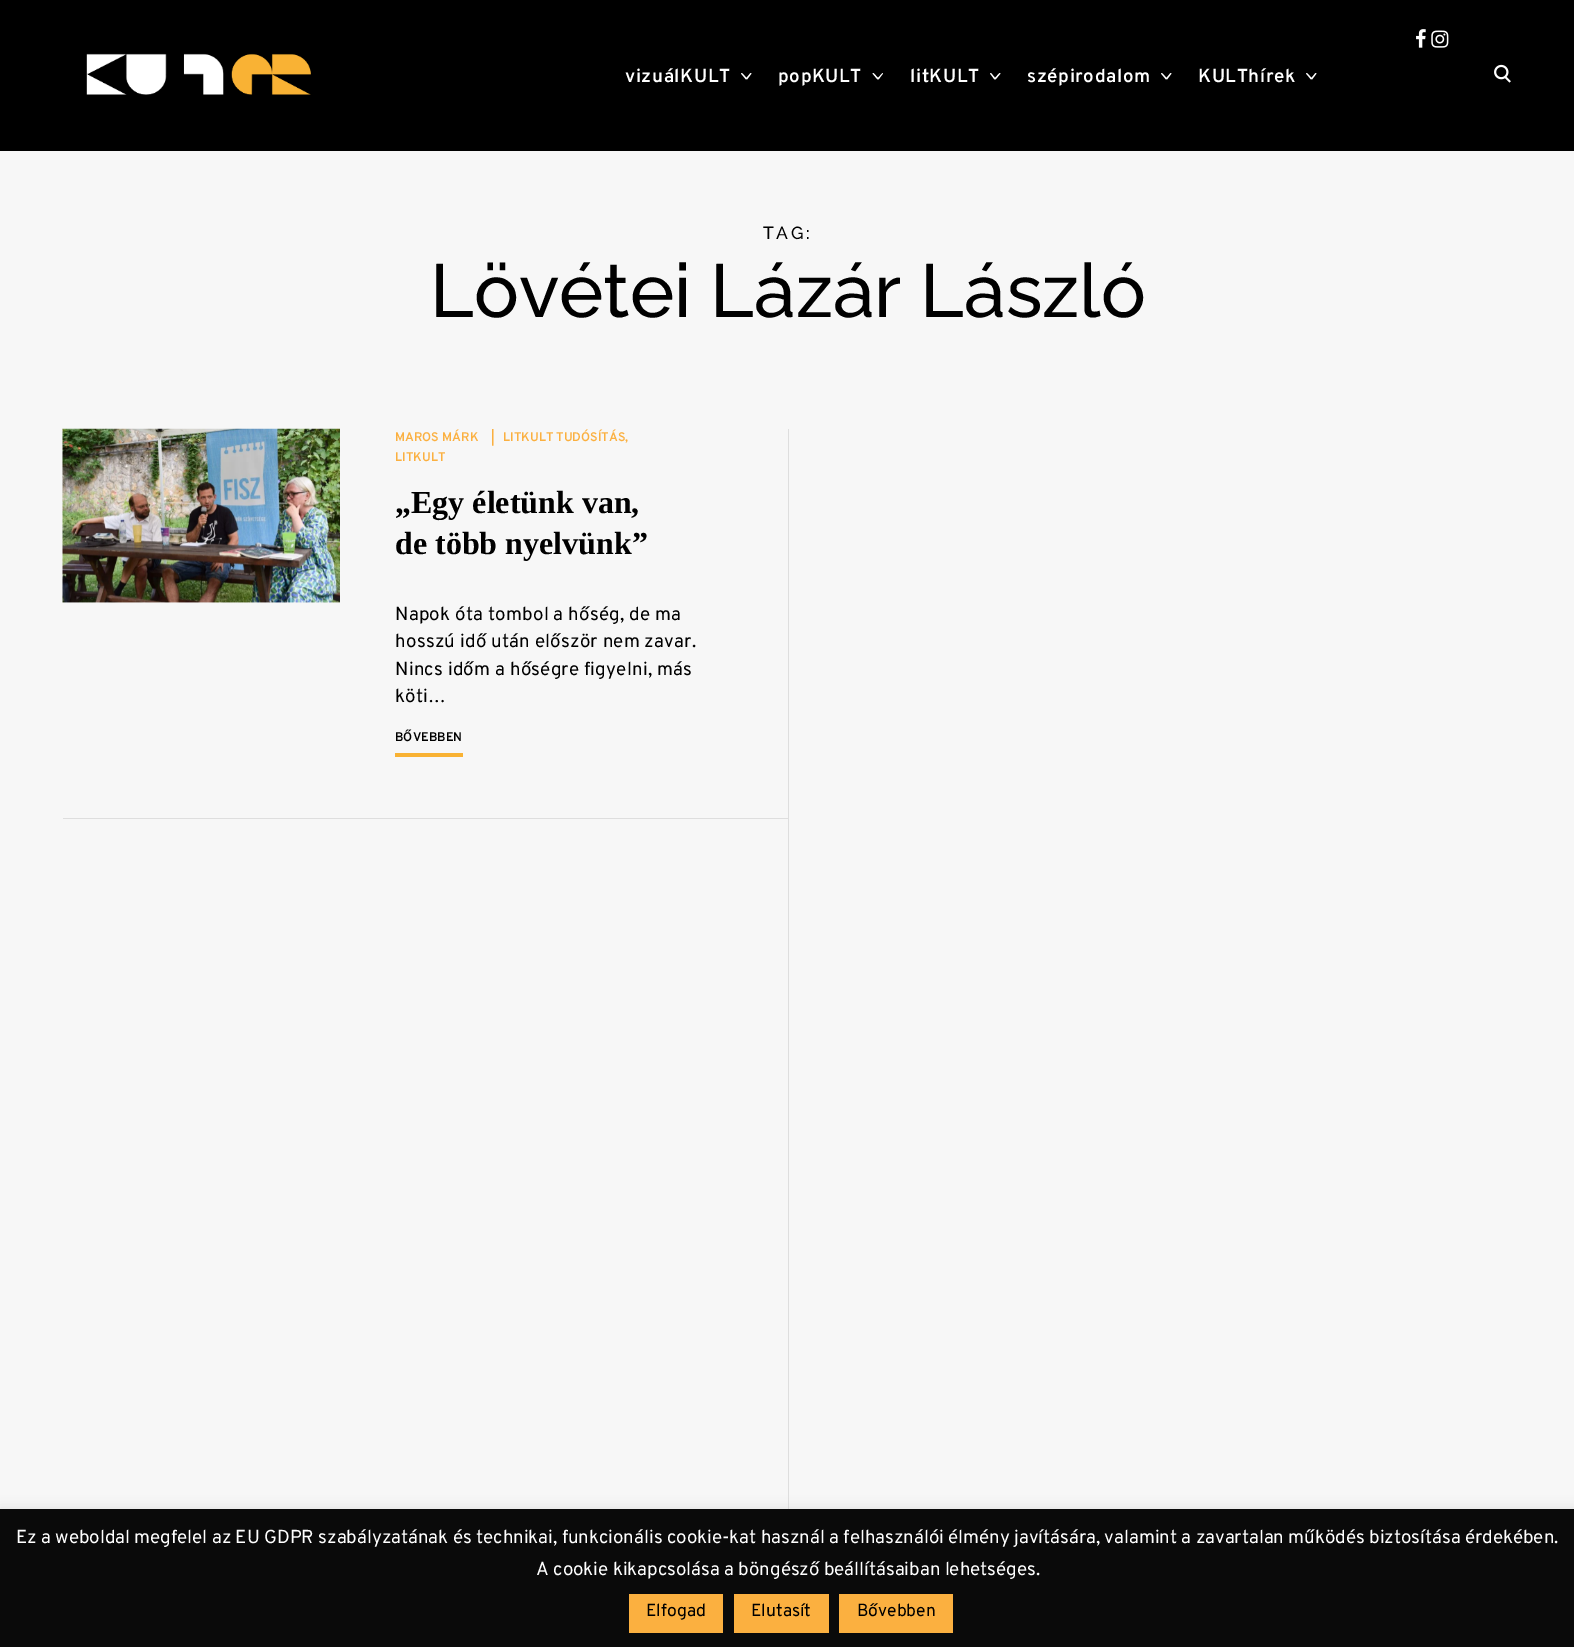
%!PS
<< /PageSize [1574 1647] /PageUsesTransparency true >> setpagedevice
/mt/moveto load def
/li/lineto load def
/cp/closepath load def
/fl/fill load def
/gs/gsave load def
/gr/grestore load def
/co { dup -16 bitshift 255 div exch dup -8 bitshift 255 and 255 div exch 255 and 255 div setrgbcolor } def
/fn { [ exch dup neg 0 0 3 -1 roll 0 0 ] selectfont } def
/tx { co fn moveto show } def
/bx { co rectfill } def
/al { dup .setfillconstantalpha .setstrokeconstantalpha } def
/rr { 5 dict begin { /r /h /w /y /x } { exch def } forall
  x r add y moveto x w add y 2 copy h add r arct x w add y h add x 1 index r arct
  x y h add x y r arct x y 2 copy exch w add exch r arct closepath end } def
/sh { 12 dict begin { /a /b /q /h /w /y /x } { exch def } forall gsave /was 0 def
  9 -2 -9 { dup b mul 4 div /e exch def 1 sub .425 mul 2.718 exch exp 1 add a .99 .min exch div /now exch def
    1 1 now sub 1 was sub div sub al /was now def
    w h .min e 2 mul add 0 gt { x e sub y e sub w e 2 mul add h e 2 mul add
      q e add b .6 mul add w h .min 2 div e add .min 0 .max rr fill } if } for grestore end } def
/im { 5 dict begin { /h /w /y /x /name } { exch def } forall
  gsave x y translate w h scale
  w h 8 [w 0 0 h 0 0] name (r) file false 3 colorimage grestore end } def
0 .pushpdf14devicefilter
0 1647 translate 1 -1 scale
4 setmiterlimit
0 0 1574 1647 16#F7F7F7 bx
0 0 1574 151 16#000000 bx
(media/1.raw) 1416 29 10 19 im
(media/2.raw) 1431 30 18 18 im
(media/3.raw) 86 53 225 42 im
16#FFFFFF co
741 73.5 mt 742 73 li 747 78.5 li 746 79.5 li cp fl
750.5 73 mt 751.5 73.5 li 747 79.5 li 746 78.5 li cp fl
872.5 73.5 mt 873.5 73 li 878.5 78.5 li 877.5 79.5 li cp fl
882.5 73 mt 883 73.5 li 878.5 79.5 li 877.5 78.5 li cp fl
990 73.5 mt 991 73 li 995.5 78.5 li 994.5 79.5 li cp fl
999.5 73 mt 1000.5 73.5 li 995.5 79.5 li 994.5 78.5 li cp fl
1161 73.5 mt 1162 73 li 1167 78.5 li 1166 79.5 li cp fl
1170.5 73 mt 1171.5 73.5 li 1167 79.5 li 1166 78.5 li cp fl
1306 73.5 mt 1307 73 li 1312 78.5 li 1311 79.5 li cp fl
1315.5 73 mt 1316.5 73.5 li 1312 79.5 li 1311 78.5 li cp fl
(media/4.raw) 1494 64 17 19 im
(media/5.raw) 62 428 278 175 im
395 753 68 4 16#F9B233 bx
63 818 725 1 16#DEDEDE bx
788 429 1 1080 16#DEDEDE bx
16#ACABAB co
0 1508 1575 138 0 6 .3 sh
0 1509 1574 138 16#0A0A0A bx
629 1594 94 39 16#FBB040 bx
734 1594 95 39 16#FBB040 bx
839 1594 114 39 16#FBB040 bx
/Overpass-SemiBold 18.75 fn
16#FFFFFF co
625 82 mt .6 0 (vizuálKULT) ashow
778 82 mt .6 0 (popKULT) ashow
910 82 mt .6 0 (litKULT) ashow
1027 82 mt .6 0 (szépirodalom) ashow
1198 82 mt .6 0 (KULThírek) ashow
/Raleway-Medium 17.5 fn
16#000000 co
763 239 mt 2.5 0 (TAG:) ashow
(Lövétei Lázár László) 430 317 /Raleway-Medium 75 16#000000 tx
(MAROS MÁRK) 395 441 /Overpass-SemiBold 12.5 16#FBB040 tx
gs
63 429 1450 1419 rectclip
(|) 491 441 /Overpass-SemiBold 12.5 16#FBB040 tx
gr
(LITKULT TUDÓSÍTÁS,) 503 441 /Overpass-SemiBold 12.5 16#FBB040 tx
(LITKULT) 395 461 /Overpass-SemiBold 12.5 16#FBB040 tx
(„Egy életünk van,) 395 513 /LiberationSerif-Bold 32 16#000000 tx
(de több nyelvünk”) 395 554 /LiberationSerif-Bold 32 16#000000 tx
/Overpass-Regular 18.75 fn
395 620 mt .25 0 (Napok óta tombol a hőség, de ma) ashow
395 647 mt .25 0 (hosszú idő után először nem zavar.) ashow
395 675 mt .25 0 (Nincs időm a hőségre figyelni, más) ashow
395 702 mt .25 0 (köti…) ashow
(BŐVEBBEN) 395 741 /Overpass-SemiBold 12.5 16#000000 tx
(Ez a weboldal megfelel az EU GDPR szabályzatának és technikai, funkcionális cookie-kat használ a felhasználói élmény javítására, valamint a zavartalan működés biztosítása érdekében.) 16 1543 /Overpass-Regular 18.75 16#FFFFFF tx
(A cookie kikapcsolása a böngésző beállításaiban lehetséges.) 536 1575 /Overpass-Regular 18.75 16#FFFFFF tx
(Elfogad) 646 1616 /Overpass-Regular 17.5 16#000000 tx
(Elutasít) 751 1616 /Overpass-Regular 17.5 16#000000 tx
(Bővebben) 857 1616 /Overpass-Regular 17.5 16#000000 tx
.poppdf14devicefilter showpage
